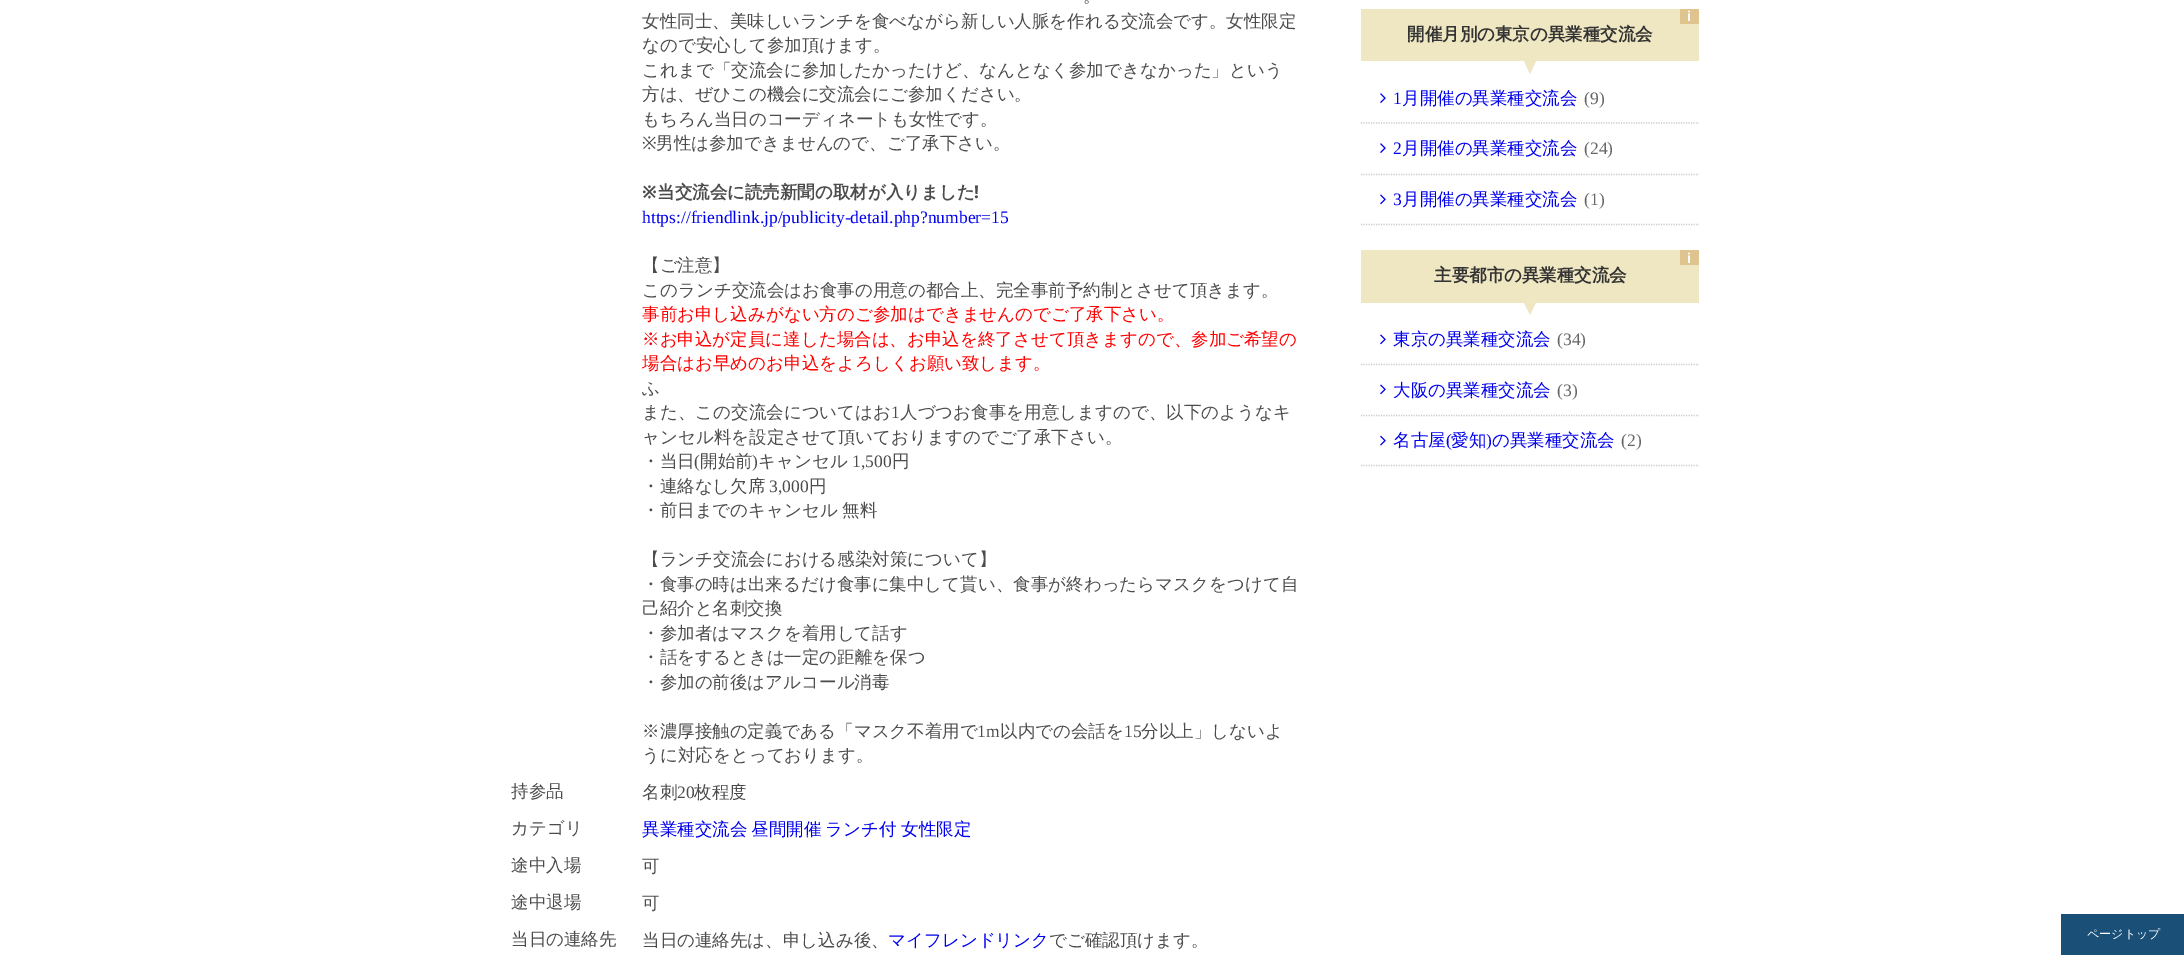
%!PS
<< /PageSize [2184 967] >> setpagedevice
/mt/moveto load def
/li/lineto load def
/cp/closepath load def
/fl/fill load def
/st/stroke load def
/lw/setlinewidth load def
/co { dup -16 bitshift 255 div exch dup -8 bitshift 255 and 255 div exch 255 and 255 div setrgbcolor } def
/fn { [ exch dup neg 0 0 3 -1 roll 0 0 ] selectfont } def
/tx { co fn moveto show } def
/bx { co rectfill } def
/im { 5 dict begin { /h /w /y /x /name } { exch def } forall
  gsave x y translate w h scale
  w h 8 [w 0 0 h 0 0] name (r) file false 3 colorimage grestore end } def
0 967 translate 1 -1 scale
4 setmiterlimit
0 0 2184 967 16#FFFFFF bx
1361 9 338 52 16#EEE7C1 bx
1680 9 19 15 16#E0C48F bx
16#EEE7C1 co
1524 61 mt 1536 61 li 1530 74 li cp fl
16#CCCCCC co
1.2 lw
[1.25 1.25] 0 setdash
1361 123 mt 1699 123 li st
(media/1.raw) 1380 93 6 10 im
1361 174.5 mt 1699 174.5 li st
(media/1.raw) 1380 143 6 10 im
1361 224.5 mt 1699 224.5 li st
(media/2.raw) 1380 194 6 11 im
1361 250 338 53 16#EEE7C1 bx
1680 250 19 15 16#E0C48F bx
16#EEE7C1 co
1524 302.5 mt 1536 302.5 li 1530 315 li cp fl
16#CCCCCC co
1361 364.5 mt 1699 364.5 li st
(media/2.raw) 1380 334 6 11 im
1361 415.5 mt 1699 415.5 li st
(media/2.raw) 1380 384 6 11 im
1361 465.5 mt 1699 465.5 li st
(media/3.raw) 1380 435 6 11 im
2061 914 123 41 16#1A4F77 bx
(。) 1083 2 /WenQuanYiZenHei-Medium 17.5 16#4C4C4C tx
(女性同士、美味しいランチを食べながら新しい人脈を作れる交流会です。女性限定) 642 27 /WenQuanYiZenHei-Medium 17.5 16#4C4C4C tx
(なので安心して参加頂けます。) 642 51 /WenQuanYiZenHei-Medium 17.5 16#4C4C4C tx
(これまで「交流会に参加したかったけど、なんとなく参加できなかった」という) 642 76 /WenQuanYiZenHei-Medium 17.5 16#4C4C4C tx
(方は、ぜひこの機会に交流会にご参加ください。) 642 100 /WenQuanYiZenHei-Medium 17.5 16#4C4C4C tx
(もちろん当日のコーディネートも女性です。) 642 125 /WenQuanYiZenHei-Medium 17.5 16#4C4C4C tx
(※) 642 149 /NotoSans-Regular 17.5 16#4C4C4C tx
(男性は参加できませんので、ご了承下さい。) 656 149 /WenQuanYiZenHei-Medium 17.5 16#4C4C4C tx
(※) 642 198 /NotoSans-Bold 17.5 16#4C4C4C tx
(当交流会に読売新聞の取材が入りました) 657 198 /WenQuanYiZenHei-Bold 17.5 16#4C4C4C tx
(!) 974 198 /NotoSans-Bold 17.5 16#4C4C4C tx
(https://friendlink.jp/publicity-detail.php?number=15) 642 223 /LiberationSerif-Regular 17.5 16#0000EE tx
(【ご注意】) 642 271 /WenQuanYiZenHei-Medium 17.5 16#4C4C4C tx
(このランチ交流会はお食事の用意の都合上、完全事前予約制とさせて頂きます。) 642 296 /WenQuanYiZenHei-Medium 17.5 16#4C4C4C tx
(事前お申し込みがない方のご参加はできませんのでご了承下さい。) 642 320 /WenQuanYiZenHei-Medium 17.5 16#FF0000 tx
(※お申込が定員に達した場合は、お申込を終了させて頂きますので、参加ご希望の) 642 345 /WenQuanYiZenHei-Medium 17.5 16#FF0000 tx
(場合はお早めのお申込をよろしくお願い致します。) 642 369 /WenQuanYiZenHei-Medium 17.5 16#FF0000 tx
(ふ) 642 394 /WenQuanYiZenHei-Medium 17.5 16#4C4C4C tx
(また、この交流会についてはお) 642 418 /WenQuanYiZenHei-Medium 17.5 16#4C4C4C tx
(1) 891 418 /LiberationSerif-Regular 17.5 16#4C4C4C tx
(人づつお食事を用意しますので、以下のようなキ) 900 418 /WenQuanYiZenHei-Medium 17.5 16#4C4C4C tx
(ャンセル料を設定させて頂いておりますのでご了承下さい。) 642 443 /WenQuanYiZenHei-Medium 17.5 16#4C4C4C tx
(・当日) 642 467 /WenQuanYiZenHei-Medium 17.5 16#4C4C4C tx
(\() 694 467 /LiberationSerif-Regular 17.5 16#4C4C4C tx
(開始前) 700 467 /WenQuanYiZenHei-Medium 17.5 16#4C4C4C tx
(\)) 752 467 /LiberationSerif-Regular 17.5 16#4C4C4C tx
(キャンセル) 758 467 /WenQuanYiZenHei-Medium 17.5 16#4C4C4C tx
(1,500) 852 467 /LiberationSerif-Regular 17.5 16#4C4C4C tx
(円) 892 467 /WenQuanYiZenHei-Medium 17.5 16#4C4C4C tx
(・連絡なし欠席) 642 492 /WenQuanYiZenHei-Medium 17.5 16#4C4C4C tx
(3,000) 769 492 /LiberationSerif-Regular 17.5 16#4C4C4C tx
(円) 809 492 /WenQuanYiZenHei-Medium 17.5 16#4C4C4C tx
642 516 mt -1 0 32 (・前日までのキャンセル 無料) widthshow
(【ランチ交流会における感染対策について】) 642 565 /WenQuanYiZenHei-Medium 17.5 16#4C4C4C tx
(・食事の時は出来るだけ食事に集中して貰い、食事が終わったらマスクをつけて自) 642 590 /WenQuanYiZenHei-Medium 17.5 16#4C4C4C tx
(己紹介と名刺交換) 642 614 /WenQuanYiZenHei-Medium 17.5 16#4C4C4C tx
(・参加者はマスクを着用して話す) 642 639 /WenQuanYiZenHei-Medium 17.5 16#4C4C4C tx
(・話をするときは一定の距離を保つ) 642 663 /WenQuanYiZenHei-Medium 17.5 16#4C4C4C tx
(・参加の前後はアルコール消毒) 642 688 /WenQuanYiZenHei-Medium 17.5 16#4C4C4C tx
(※濃厚接触の定義である「マスク不着用で) 642 737 /WenQuanYiZenHei-Medium 17.5 16#4C4C4C tx
(1m) 977 737 /LiberationSerif-Regular 17.5 16#4C4C4C tx
(以内での会話を) 1000 737 /WenQuanYiZenHei-Medium 17.5 16#4C4C4C tx
(15) 1124 737 /LiberationSerif-Regular 17.5 16#4C4C4C tx
(分以上」しないよ) 1141 737 /WenQuanYiZenHei-Medium 17.5 16#4C4C4C tx
(うに対応をとっております。) 642 761 /WenQuanYiZenHei-Medium 17.5 16#4C4C4C tx
(持参品) 511 797 /WenQuanYiZenHei-Medium 17.5 16#4C4C4C tx
(名刺) 642 798 /WenQuanYiZenHei-Medium 17.5 16#4C4C4C tx
(20) 677 798 /LiberationSerif-Regular 17.5 16#4C4C4C tx
(枚程度) 694 798 /WenQuanYiZenHei-Medium 17.5 16#4C4C4C tx
(カテゴリ) 511 834 /WenQuanYiZenHei-Medium 17.5 16#4C4C4C tx
(異業種交流会) 642 835 /WenQuanYiZenHei-Medium 17.5 16#0000EE tx
(昼間開催) 751 835 /WenQuanYiZenHei-Medium 17.5 16#0000EE tx
(ランチ付) 825 835 /WenQuanYiZenHei-Medium 17.5 16#0000EE tx
(女性限定) 901 835 /WenQuanYiZenHei-Medium 17.5 16#0000EE tx
(途中入場) 511 871 /WenQuanYiZenHei-Medium 17.5 16#4C4C4C tx
(可) 642 872 /WenQuanYiZenHei-Medium 17.5 16#4C4C4C tx
(途中退場) 511 908 /WenQuanYiZenHei-Medium 17.5 16#4C4C4C tx
(可) 642 909 /WenQuanYiZenHei-Medium 17.5 16#4C4C4C tx
(当日の連絡先) 511 945 /WenQuanYiZenHei-Medium 17.5 16#4C4C4C tx
(当日の連絡先は、申し込み後、) 642 946 /WenQuanYiZenHei-Medium 17.5 16#4C4C4C tx
(マイフレンドリンク) 888 946 /WenQuanYiZenHei-Medium 17.5 16#0000EE tx
(でご確認頂けます。) 1049 946 /WenQuanYiZenHei-Medium 17.5 16#4C4C4C tx
(i) 1687 21 /LiberationSans-Bold 14 16#FFFFFF tx
(開催月別の東京の異業種交流会) 1407 40 /WenQuanYiZenHei-Bold 17.5 16#333333 tx
(1) 1393 104 /LiberationSerif-Regular 17.5 16#0000EE tx
(月開催の異業種交流会) 1402 104 /WenQuanYiZenHei-Medium 17.5 16#0000EE tx
(\(9\)) 1584 104 /LiberationSerif-Regular 17.5 16#666666 tx
(2) 1393 154 /LiberationSerif-Regular 17.5 16#0000EE tx
(月開催の異業種交流会) 1402 154 /WenQuanYiZenHei-Medium 17.5 16#0000EE tx
(\(24\)) 1584 154 /LiberationSerif-Regular 17.5 16#666666 tx
(3) 1393 205 /LiberationSerif-Regular 17.5 16#0000EE tx
(月開催の異業種交流会) 1402 205 /WenQuanYiZenHei-Medium 17.5 16#0000EE tx
(\(1\)) 1584 205 /LiberationSerif-Regular 17.5 16#666666 tx
(i) 1687 263 /LiberationSans-Bold 14 16#FFFFFF tx
(主要都市の異業種交流会) 1434 281 /WenQuanYiZenHei-Bold 17.5 16#333333 tx
(東京の異業種交流会) 1393 345 /WenQuanYiZenHei-Medium 17.5 16#0000EE tx
(\(34\)) 1557 345 /LiberationSerif-Regular 17.5 16#666666 tx
(大阪の異業種交流会) 1393 396 /WenQuanYiZenHei-Medium 17.5 16#0000EE tx
(\(3\)) 1557 396 /LiberationSerif-Regular 17.5 16#666666 tx
(名古屋) 1393 446 /WenQuanYiZenHei-Medium 17.5 16#0000EE tx
(\() 1446 446 /LiberationSerif-Regular 17.5 16#0000EE tx
(愛知) 1451 446 /WenQuanYiZenHei-Medium 17.5 16#0000EE tx
(\)) 1486 446 /LiberationSerif-Regular 17.5 16#0000EE tx
(の異業種交流会) 1492 446 /WenQuanYiZenHei-Medium 17.5 16#0000EE tx
(\(2\)) 1621 446 /LiberationSerif-Regular 17.5 16#666666 tx
(ページトップ) 2087 938 /WenQuanYiZenHei-Medium 12 16#FFFFFF tx
showpage
